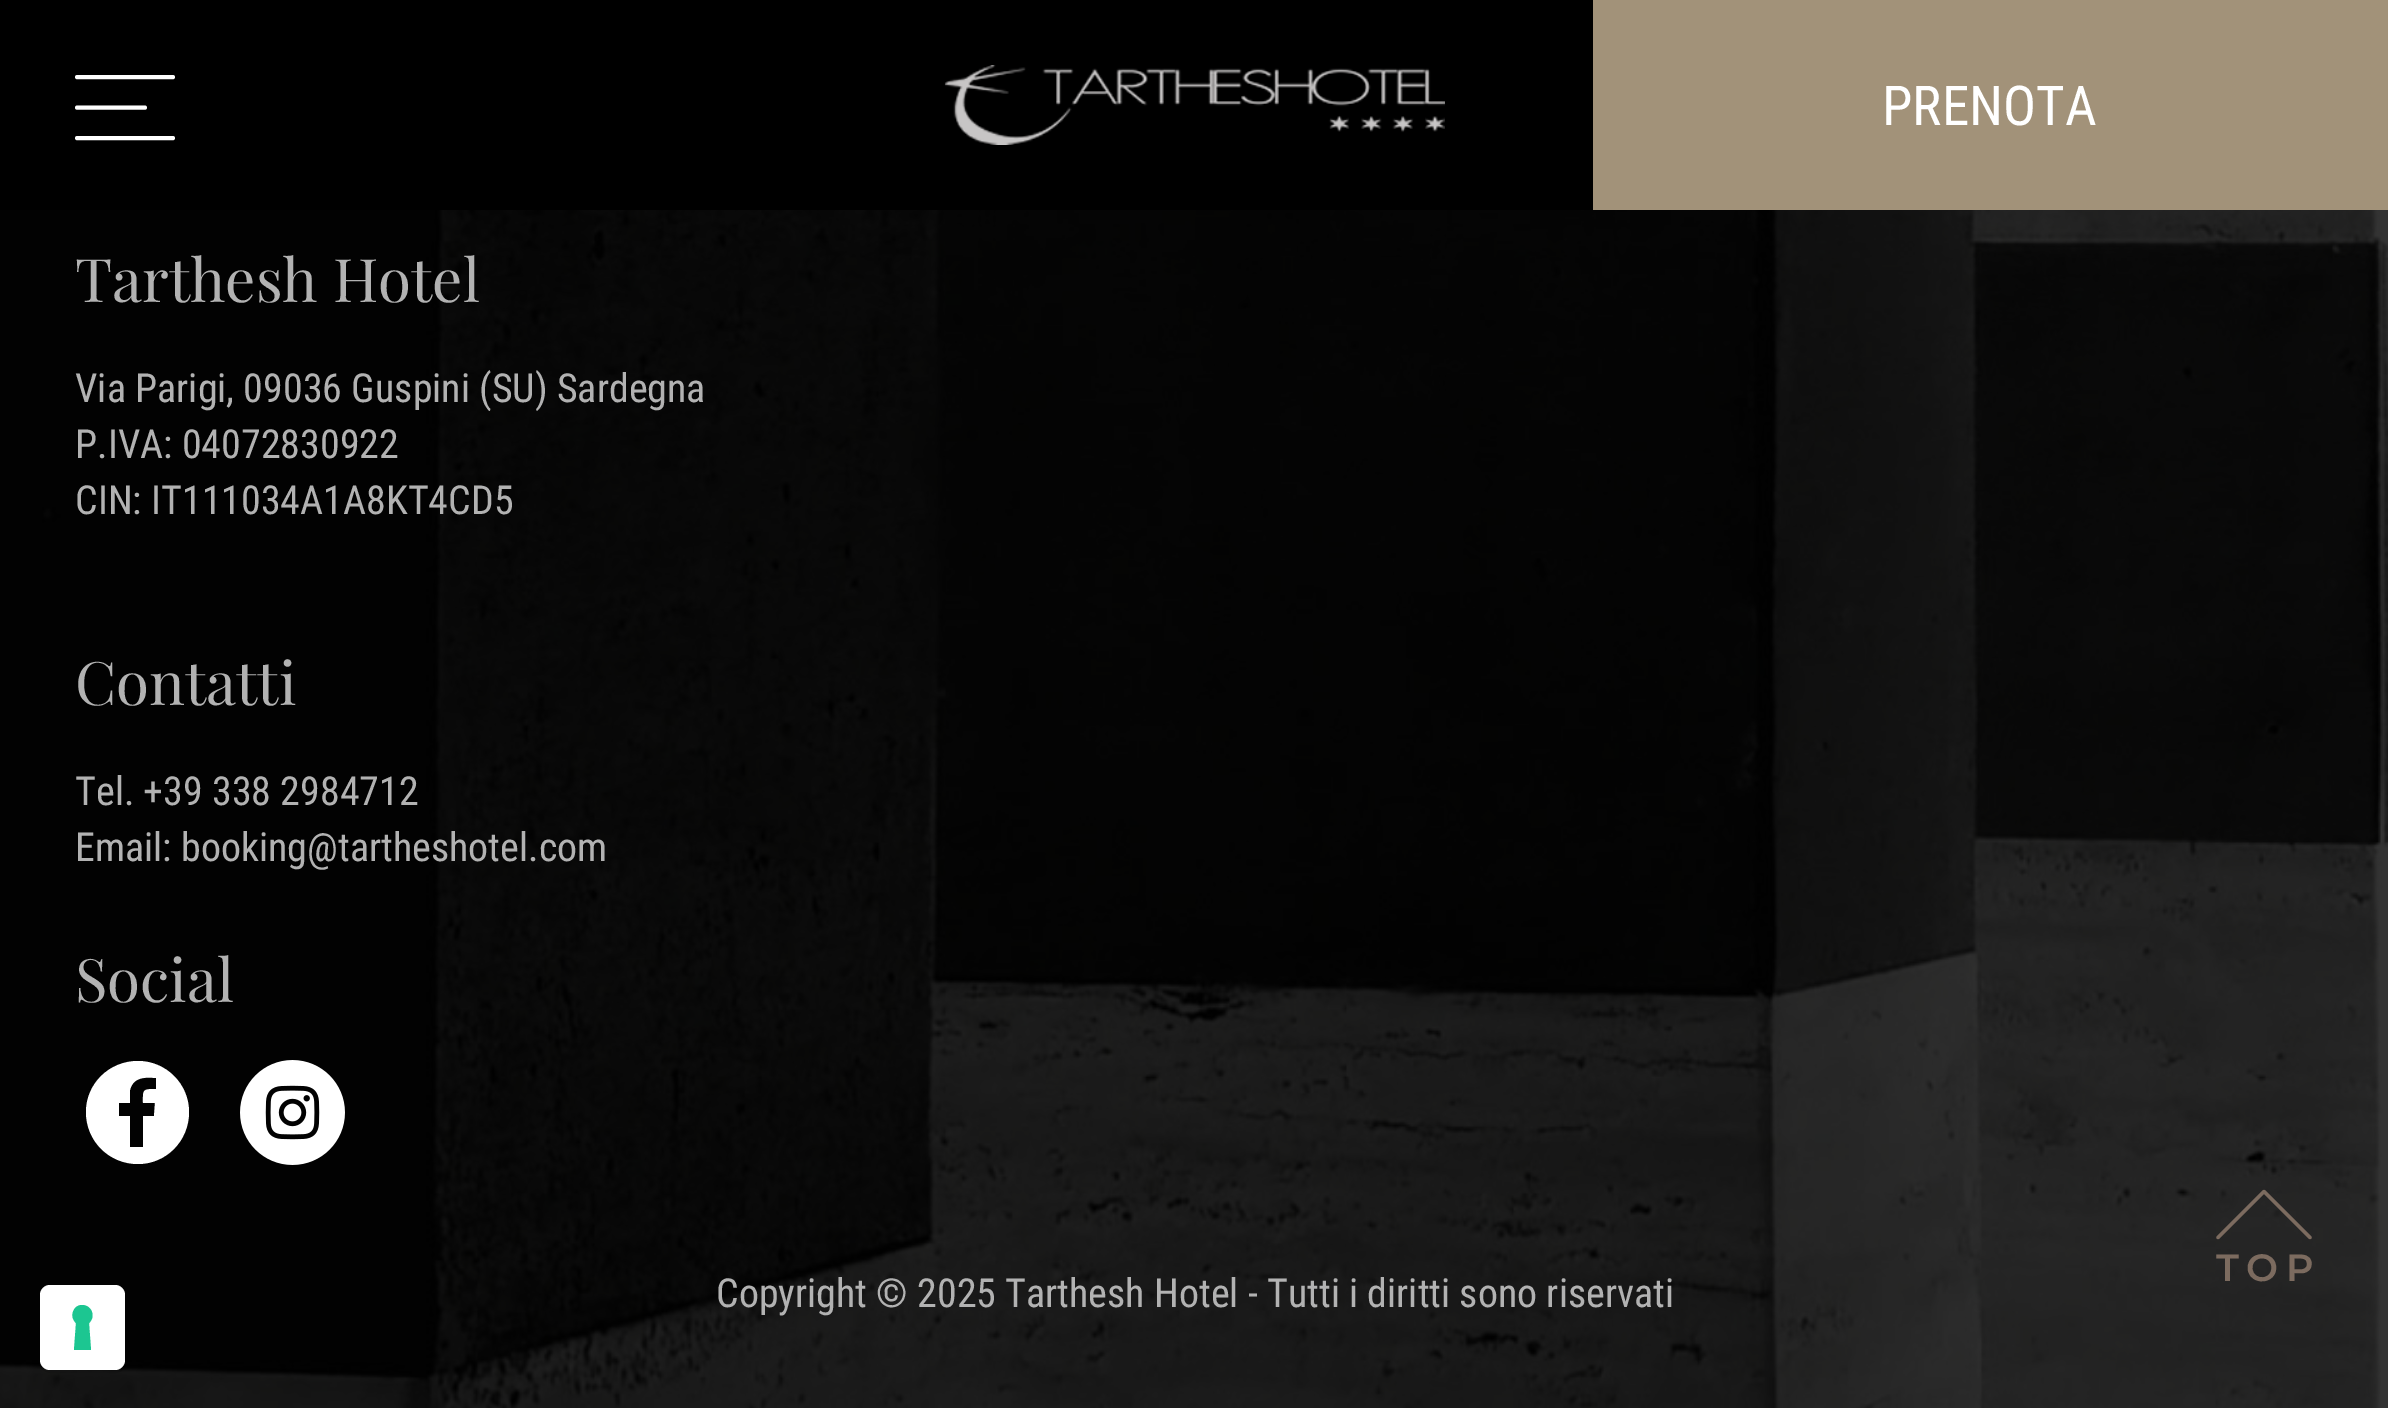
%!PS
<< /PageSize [2388 1408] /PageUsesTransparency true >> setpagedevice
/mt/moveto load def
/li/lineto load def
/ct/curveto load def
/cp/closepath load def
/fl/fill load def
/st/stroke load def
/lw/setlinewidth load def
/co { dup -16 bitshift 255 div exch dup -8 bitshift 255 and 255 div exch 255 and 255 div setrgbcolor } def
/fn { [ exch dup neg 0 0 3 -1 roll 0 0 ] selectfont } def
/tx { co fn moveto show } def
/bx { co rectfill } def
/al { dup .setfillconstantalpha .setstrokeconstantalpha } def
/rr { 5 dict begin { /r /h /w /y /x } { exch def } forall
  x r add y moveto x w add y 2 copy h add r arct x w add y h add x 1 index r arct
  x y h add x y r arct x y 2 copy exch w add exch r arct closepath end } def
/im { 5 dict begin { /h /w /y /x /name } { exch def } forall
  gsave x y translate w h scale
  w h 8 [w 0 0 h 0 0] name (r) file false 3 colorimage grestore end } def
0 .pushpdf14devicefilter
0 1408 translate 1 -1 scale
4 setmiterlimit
0 0 2388 1408 16#FFFFFF bx
0 0 1593 210 16#000000 bx
16#FFFFFF co
4 lw
1 setlinecap
1 setlinejoin
77 107.5 mt 145 107.5 li st
77 77 mt 173 77 li st
77 138 mt 173 138 li st
(media/1.raw) 944 65 501 80 im
1593 0 795 210 16#A29279 bx
(media/2.raw) 0 210 2388 1198 im
16#FFFFFF co
138 1164 mt 166 1164 189 1141 189 1112 ct 189 1084 166 1061 138 1061 ct 109 1061 86 1084 86 1112 ct 86 1141 109 1164 138 1164 ct cp 119 1103 mt 130 1103 li 130 1090 li 133 1077 145 1077 156 1078 ct 156 1089 li 142 1089 143 1090 143 1103 ct 155 1103 li 154 1116 li 143 1116 li 143 1147 li 130 1147 li 130 1116 li 119 1116 li cp eofill
(media/3.raw) 240 1060 105 105 im
16#7C6B5F co
3.2 lw
2218 1237.5 mt 2264 1191.5 li 2310 1237.5 li st
0.15 al
16#000000 co
3 lw
0 setlinecap
0 setlinejoin
39.5 1284.5 87 87 11.5 rr st
1 al
16#FFFFFF co
40 1285 85 85 10 rr fl
16#1CC691 co
82 1305 mt 92 1305 96 1317 89 1323 ct 91 1350 li 74 1350 li 76 1323 li 69 1317 73 1305 82 1305 ct cp eofill
(PRENOTA) 1882 125 /RobotoCondensed-Regular 55 16#FFFFFF tx
(Tarthesh Hotel) 75 302 /PlayfairDisplay-Regular 60 16#B2B2B2 tx
(Via Parigi, 09036 Guspini \(SU\) Sardegna) 75 402 /RobotoCondensed-Regular 40 16#B2B2B2 tx
(P.IVA: 04072830922) 75 458 /RobotoCondensed-Regular 40 16#B2B2B2 tx
(CIN: IT111034A1A8KT4CD5) 75 514 /RobotoCondensed-Regular 40 16#B2B2B2 tx
(Contatti) 75 705 /PlayfairDisplay-Regular 60 16#B2B2B2 tx
(Tel. +39 338 2984712) 75 805 /RobotoCondensed-Regular 40 16#B2B2B2 tx
(Email: booking@tartheshotel.com) 75 861 /RobotoCondensed-Regular 40 16#B2B2B2 tx
(Social) 75 1002 /PlayfairDisplay-Regular 60 16#B2B2B2 tx
/Montserrat-SemiBold 38 fn
16#7C6B5F co
2216 1281 mt 7.5 0 (TOP) ashow
(Copyright © 2025 Tarthesh Hotel - Tutti i diritti sono riservati) 716 1307 /RobotoCondensed-Regular 40 16#B2B2B2 tx
.poppdf14devicefilter showpage
